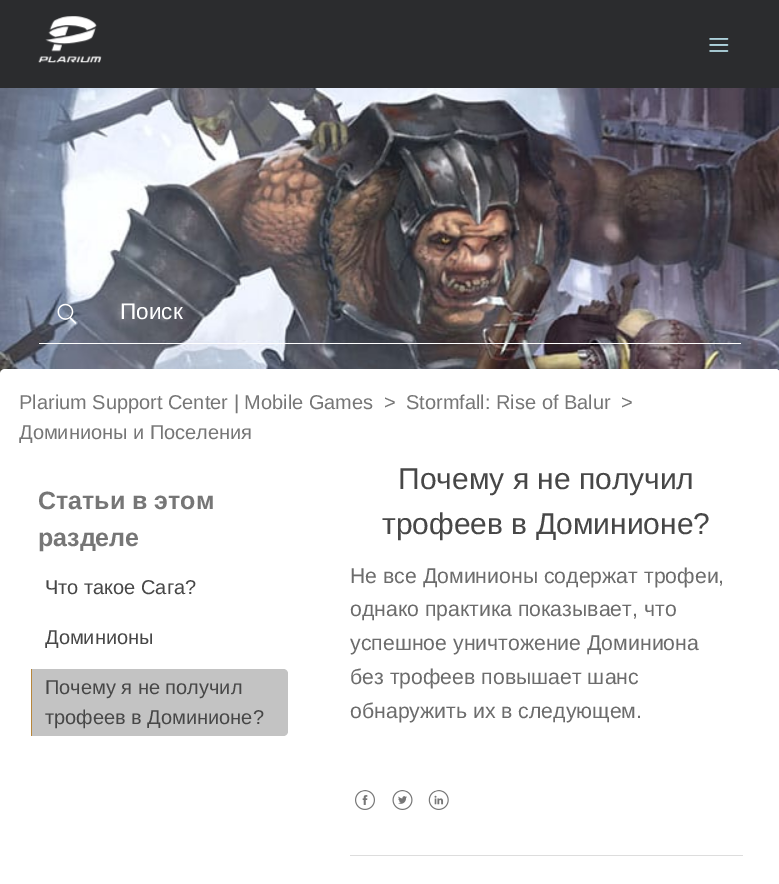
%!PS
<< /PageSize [779 884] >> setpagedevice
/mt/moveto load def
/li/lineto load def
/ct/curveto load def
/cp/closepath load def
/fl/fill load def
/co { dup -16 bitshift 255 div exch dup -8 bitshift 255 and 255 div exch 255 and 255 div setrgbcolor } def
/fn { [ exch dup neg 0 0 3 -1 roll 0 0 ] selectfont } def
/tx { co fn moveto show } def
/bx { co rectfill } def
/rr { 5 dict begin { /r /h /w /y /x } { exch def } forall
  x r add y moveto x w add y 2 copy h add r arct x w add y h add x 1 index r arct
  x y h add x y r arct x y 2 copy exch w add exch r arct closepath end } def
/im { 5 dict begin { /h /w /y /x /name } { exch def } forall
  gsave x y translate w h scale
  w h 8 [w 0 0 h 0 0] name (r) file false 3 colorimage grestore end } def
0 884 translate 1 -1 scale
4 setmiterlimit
0 0 779 884 16#FFFFFF bx
0 0 779 88 16#2B2C2E bx
(media/1.raw) 38 16 64 47 im
(media/2.raw) 709 38 20 14 im
(media/3.raw) 0 88 779 286 im
(media/4.raw) 57 303 19 21 im
39 343 702 1 16#FFFFFF bx
0 369 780 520 5 rr fl
16#C3C3C3 co
31 669 mt 283 669 li 286 669 288 671 288 674 ct 288 731 li 288 734 286 736 283 736 ct 31 736 li cp fl
31 669 1 67 16#B8863A bx
16#FFFFFF co
313 369 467 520 5 rr fl
(media/5.raw) 355 790 20 20 im
(media/6.raw) 392 790 21 20 im
(media/7.raw) 428 790 21 20 im
350 855 393 1 16#DDDDDD bx
(Поиск) 120 319 /LiberationSans-Regular 22.5 16#FFFFFF tx
(Plarium Support Center | Mobile Games) 19 409 /LiberationSans-Regular 20 16#767676 tx
(>) 384 409 /LiberationSans-Regular 20 16#767676 tx
(Stormfall: Rise of Balur) 406 409 /LiberationSans-Regular 20 16#767676 tx
(>) 621 409 /LiberationSans-Regular 20 16#767676 tx
(Доминионы и Поселения) 19 439 /LiberationSans-Regular 20 16#767676 tx
(Статьи в этом) 38 509 /LiberationSans-Bold 25 16#767676 tx
(разделе) 38 546 /LiberationSans-Bold 25 16#767676 tx
(Что такое Сага?) 45 594 /LiberationSans-Regular 20 16#474747 tx
(Доминионы) 45 644 /LiberationSans-Regular 20 16#474747 tx
(Почему я не получил) 45 694 /LiberationSans-Regular 20 16#474747 tx
(трофеев в Доминионе?) 45 724 /LiberationSans-Regular 20 16#474747 tx
(Почему я не получил) 398 489 /LiberationSans-Regular 30 16#474747 tx
(трофеев в Доминионе?) 382 534 /LiberationSans-Regular 30 16#474747 tx
(Не все Доминионы содержат трофеи,) 350 583 /LiberationSans-Regular 21.25 16#6C6C6C tx
(однако практика показывает, что) 350 616 /LiberationSans-Regular 21.25 16#6C6C6C tx
(успешное уничтожение Доминиона) 350 650 /LiberationSans-Regular 21.25 16#6C6C6C tx
(без трофеев повышает шанс) 350 684 /LiberationSans-Regular 21.25 16#6C6C6C tx
(обнаружить их в следующем.) 350 718 /LiberationSans-Regular 21.25 16#6C6C6C tx
showpage
